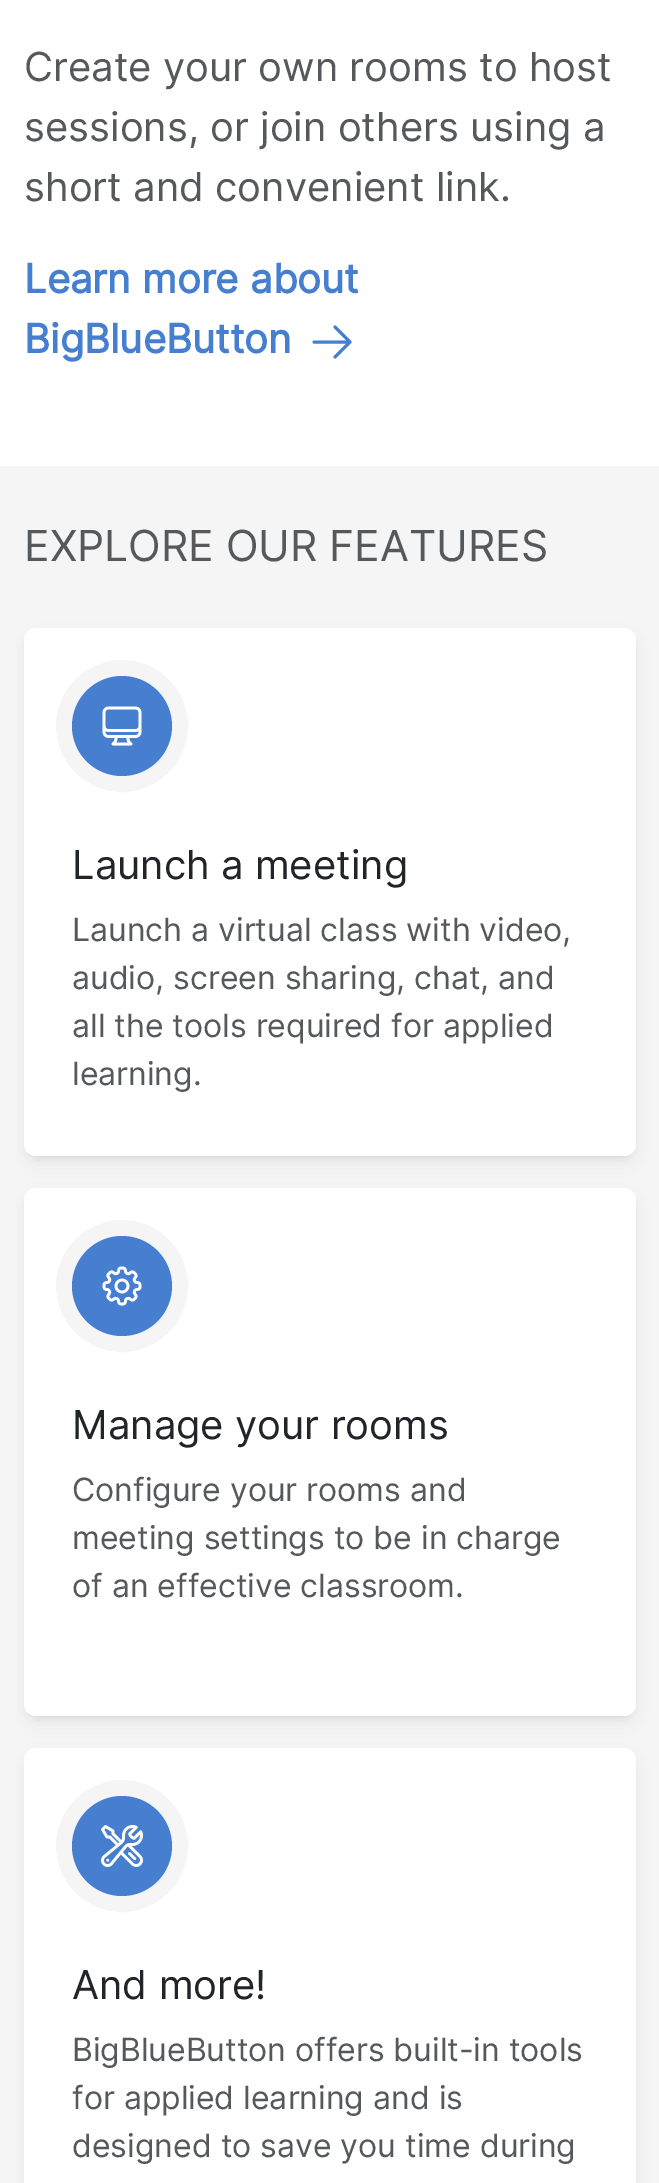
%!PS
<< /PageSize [659 2183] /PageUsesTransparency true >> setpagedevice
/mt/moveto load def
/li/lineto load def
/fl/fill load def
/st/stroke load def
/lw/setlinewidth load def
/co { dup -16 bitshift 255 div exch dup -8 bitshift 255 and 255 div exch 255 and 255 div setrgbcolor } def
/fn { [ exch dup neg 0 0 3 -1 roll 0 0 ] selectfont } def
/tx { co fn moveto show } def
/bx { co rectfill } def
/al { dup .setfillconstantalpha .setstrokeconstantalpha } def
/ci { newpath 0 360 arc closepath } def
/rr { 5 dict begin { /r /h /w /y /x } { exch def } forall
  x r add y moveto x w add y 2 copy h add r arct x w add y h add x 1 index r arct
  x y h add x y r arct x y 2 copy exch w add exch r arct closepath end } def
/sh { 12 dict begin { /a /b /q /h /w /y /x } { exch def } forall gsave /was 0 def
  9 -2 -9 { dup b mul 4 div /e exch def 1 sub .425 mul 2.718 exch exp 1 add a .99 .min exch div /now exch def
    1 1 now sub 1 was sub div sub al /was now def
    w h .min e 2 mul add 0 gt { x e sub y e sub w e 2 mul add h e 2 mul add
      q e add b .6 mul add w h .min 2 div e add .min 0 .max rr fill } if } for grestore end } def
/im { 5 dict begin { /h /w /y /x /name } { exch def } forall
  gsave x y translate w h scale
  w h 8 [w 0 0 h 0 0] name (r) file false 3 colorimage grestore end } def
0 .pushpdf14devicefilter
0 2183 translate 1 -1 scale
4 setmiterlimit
0 0 659 2183 16#F5F5F5 bx
0 0 659 466 16#FFFFFF bx
16#467FCF co
3 lw
1 setlinecap
1 setlinejoin
335 327 mt 350 342 li 350 342 mt 335 357 li 350 342 mt 314 342 li st
16#101828 co
28 636 604 520 8 4 .06 sh
28 640 604 520 8 8 .1 sh
16#FFFFFF co
24 628 612 528 12 rr fl
16#F5F5F5 co
16 lw
0 setlinecap
0 setlinejoin
122 726 58 ci st
16#467FCF co
122 726 50 ci fl
(media/1.raw) 102 706 40 40 im
16#101828 co
28 1196 604 520 8 4 .06 sh
28 1200 604 520 8 8 .1 sh
16#FFFFFF co
24 1188 612 528 12 rr fl
16#F5F5F5 co
122 1286 58 ci st
16#467FCF co
122 1286 50 ci fl
(media/2.raw) 102 1266 40 40 im
16#101828 co
28 1760 604 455 8 8 .1 sh
16#FFFFFF co
24 1748 612 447 12 rr fl
16#F5F5F5 co
122 1846 58 ci st
16#467FCF co
122 1846 50 ci fl
(media/3.raw) 101 1825 42 42 im
(Create your own rooms to host) 24 81 /Inter-Regular 40 16#56595C tx
(sessions, or join others using a) 24 141 /Inter-Regular 40 16#56595C tx
(short and convenient link.) 24 201 /Inter-Regular 40 16#56595C tx
(Learn more about) 24 293 /Inter-Bold 40 16#467FCF tx
(BigBlueButton) 24 353 /Inter-Bold 40 16#467FCF tx
(EXPLORE OUR FEATURES) 24 561 /Inter-Regular 42.75 16#56595C tx
(Launch a meeting) 72 879 /Inter-Regular 40 16#212529 tx
(Launch a virtual class with video,) 72 941 /Inter-Regular 32 16#56595C tx
(audio, screen sharing, chat, and) 72 989 /Inter-Regular 32 16#56595C tx
(all the tools required for applied) 72 1037 /Inter-Regular 32 16#56595C tx
(learning.) 72 1085 /Inter-Regular 32 16#56595C tx
(Manage your rooms) 72 1439 /Inter-Regular 40 16#212529 tx
(Configure your rooms and) 72 1501 /Inter-Regular 32 16#56595C tx
(meeting settings to be in charge) 72 1549 /Inter-Regular 32 16#56595C tx
(of an effective classroom.) 72 1597 /Inter-Regular 32 16#56595C tx
(And more!) 72 1999 /Inter-Regular 40 16#212529 tx
(BigBlueButton offers built-in tools) 72 2061 /Inter-Regular 32 16#56595C tx
(for applied learning and is) 72 2109 /Inter-Regular 32 16#56595C tx
(designed to save you time during) 72 2157 /Inter-Regular 32 16#56595C tx
.poppdf14devicefilter showpage
